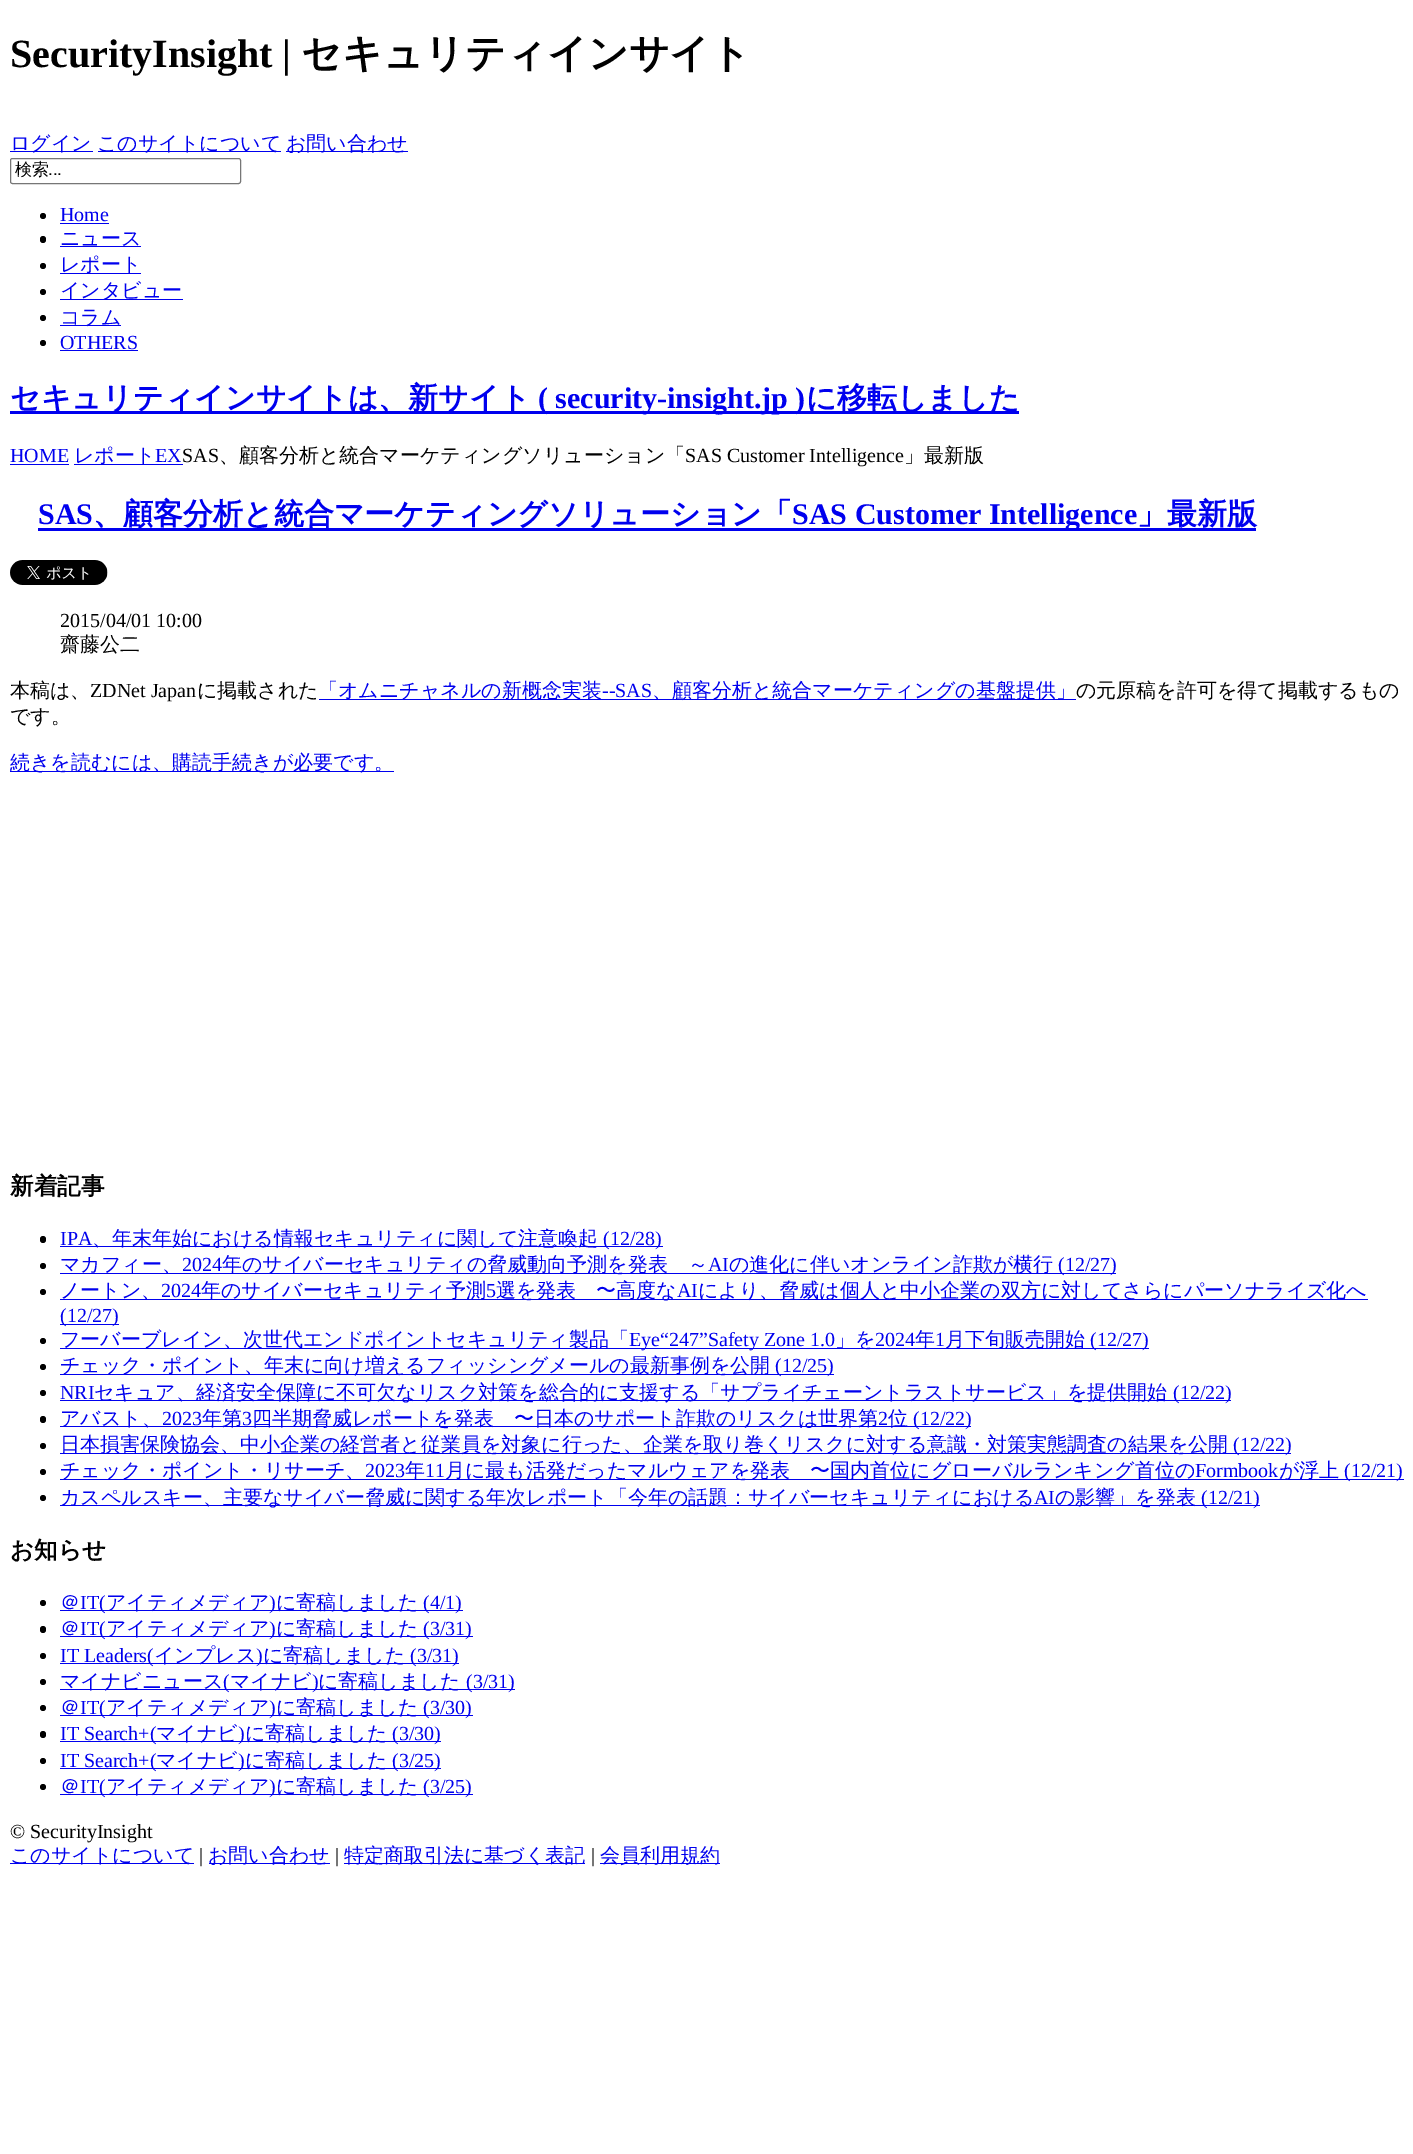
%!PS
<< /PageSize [1413 2154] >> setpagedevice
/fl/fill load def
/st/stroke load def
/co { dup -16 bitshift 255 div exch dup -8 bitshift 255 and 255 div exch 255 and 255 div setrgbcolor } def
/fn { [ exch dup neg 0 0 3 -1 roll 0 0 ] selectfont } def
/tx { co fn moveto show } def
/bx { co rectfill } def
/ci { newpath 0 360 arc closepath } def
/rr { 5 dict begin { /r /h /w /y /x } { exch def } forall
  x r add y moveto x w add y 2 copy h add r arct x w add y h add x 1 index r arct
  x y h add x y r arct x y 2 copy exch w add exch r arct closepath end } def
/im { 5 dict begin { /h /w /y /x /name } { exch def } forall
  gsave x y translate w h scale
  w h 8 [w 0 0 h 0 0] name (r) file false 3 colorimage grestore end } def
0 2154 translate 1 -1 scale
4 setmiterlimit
0 0 1413 2154 16#FFFFFF bx
10 151 83 1 16#0000EE bx
98 151 183 1 16#0000EE bx
286 151 122 1 16#0000EE bx
16#767676 co
10.5 158.5 230 25 2 rr st
16#000000 co
43 216 3 ci fl
60 223 49 1 16#0000EE bx
16#000000 co
40 236 6 7 3 rr fl
60 246 81 1 16#0000EE bx
16#000000 co
43 266 3 ci fl
60 273 81 1 16#0000EE bx
16#000000 co
43 292 3 ci fl
60 299 123 1 16#0000EE bx
16#000000 co
43 318 3 ci fl
60 325 61 1 16#0000EE bx
16#000000 co
43 343 3 ci fl
60 350 78 1 16#0000EE bx
10 411 1009 3 16#0000EE bx
10 464 59 1 16#0000EE bx
74 464 109 1 16#0000EE bx
38 528 1218 3 16#0000EE bx
(media/1.raw) 10 560 98 25 im
319 699 757 1 16#0000EE bx
10 771 384 1 16#0000EE bx
16#000000 co
40 1236 6 7 3 rr fl
60 1246 603 1 16#0000EE bx
16#000000 co
43 1266 3 ci fl
60 1273 1056 1 16#0000EE bx
16#000000 co
43 1292 3 ci fl
60 1299 1308 1 16#0000EE bx
60 1324 59 1 16#0000EE bx
16#000000 co
43 1341 3 ci fl
60 1348 1089 1 16#0000EE bx
16#000000 co
43 1367 3 ci fl
60 1374 774 1 16#0000EE bx
16#000000 co
43 1393 3 ci fl
60 1400 1171 1 16#0000EE bx
16#000000 co
40 1416 6 7 3 rr fl
60 1426 911 1 16#0000EE bx
16#000000 co
43 1446 3 ci fl
60 1453 1231 1 16#0000EE bx
16#000000 co
43 1472 3 ci fl
60 1479 1344 1 16#0000EE bx
16#000000 co
43 1498 3 ci fl
60 1505 1200 1 16#0000EE bx
16#000000 co
43 1603 3 ci fl
60 1610 403 1 16#0000EE bx
16#000000 co
40 1626 6 7 3 rr fl
60 1636 413 1 16#0000EE bx
16#000000 co
43 1656 3 ci fl
60 1663 399 1 16#0000EE bx
16#000000 co
43 1682 3 ci fl
60 1689 455 1 16#0000EE bx
16#000000 co
43 1708 3 ci fl
60 1715 413 1 16#0000EE bx
16#000000 co
40 1731 6 7 3 rr fl
60 1741 381 1 16#0000EE bx
16#000000 co
43 1761 3 ci fl
60 1768 381 1 16#0000EE bx
16#000000 co
43 1787 3 ci fl
60 1794 413 1 16#0000EE bx
10 1863 184 1 16#0000EE bx
209 1863 121 1 16#0000EE bx
344 1863 241 1 16#0000EE bx
600 1863 120 1 16#0000EE bx
(SecurityInsight |) 10 67 /LiberationSerif-Bold 40 16#000000 tx
(セキュリティインサイト) 301 67 /WenQuanYiZenHei-Bold 40 16#000000 tx
(ログイン) 10 150 /WenQuanYiZenHei-Medium 20 16#0000EE tx
(このサイトについて) 97 150 /WenQuanYiZenHei-Medium 20 16#0000EE tx
(お問い合わせ) 286 150 /WenQuanYiZenHei-Medium 20 16#0000EE tx
(検索) 15 175 /WenQuanYiZenHei-Medium 17 16#000000 tx
(...) 48 175 /LiberationSans-Regular 17 16#000000 tx
(Home) 60 221 /LiberationSerif-Regular 20 16#0000EE tx
(ニュース) 60 245 /WenQuanYiZenHei-Medium 20 16#0000EE tx
(レポート) 60 271 /WenQuanYiZenHei-Medium 20 16#0000EE tx
(インタビュー) 60 297 /WenQuanYiZenHei-Medium 20 16#0000EE tx
(コラム) 60 324 /WenQuanYiZenHei-Medium 20 16#0000EE tx
(OTHERS) 60 349 /LiberationSerif-Regular 20 16#0000EE tx
(セキュリティインサイトは、新サイト) 10 408 /WenQuanYiZenHei-Bold 30 16#0000EE tx
(\( security-insight.jp \)) 538 408 /LiberationSerif-Bold 30 16#0000EE tx
(に移転しました) 806 408 /WenQuanYiZenHei-Bold 30 16#0000EE tx
(HOME) 10 462 /LiberationSerif-Regular 20 16#0000EE tx
(レポート) 74 462 /WenQuanYiZenHei-Medium 20 16#0000EE tx
(EX) 155 462 /LiberationSerif-Regular 20 16#0000EE tx
(SAS) 182 462 /LiberationSerif-Regular 20 16#000000 tx
(、顧客分析と統合マーケティングソリューション「) 219 462 /WenQuanYiZenHei-Medium 20 16#000000 tx
(SAS Customer Intelligence) 685 462 /LiberationSerif-Regular 20 16#000000 tx
(」最新版) 904 462 /WenQuanYiZenHei-Medium 20 16#000000 tx
(SAS) 38 524 /LiberationSerif-Bold 30 16#0000EE tx
(、顧客分析と統合マーケティングソリューション「) 93 524 /WenQuanYiZenHei-Bold 30 16#0000EE tx
(SAS Customer Intelligence) 792 524 /LiberationSerif-Bold 30 16#0000EE tx
(」最新版) 1137 524 /WenQuanYiZenHei-Bold 30 16#0000EE tx
(2015/04/01 10:00) 60 627 /LiberationSerif-Regular 20 16#000000 tx
(齋藤公二) 60 651 /WenQuanYiZenHei-Medium 20 16#000000 tx
(本稿は、) 10 697 /WenQuanYiZenHei-Medium 20 16#000000 tx
(ZDNet Japan) 90 697 /LiberationSerif-Regular 20 16#000000 tx
(に掲載された) 197 697 /WenQuanYiZenHei-Medium 20 16#000000 tx
(「オムニチャネルの新概念実装) 318 697 /WenQuanYiZenHei-Medium 20 16#0000EE tx
(--SAS) 602 697 /LiberationSerif-Regular 20 16#0000EE tx
(、顧客分析と統合マーケティングの基盤提供」) 652 697 /WenQuanYiZenHei-Medium 20 16#0000EE tx
(の元原稿を許可を得て掲載するもの) 1076 697 /WenQuanYiZenHei-Medium 20 16#000000 tx
(です。) 10 723 /WenQuanYiZenHei-Medium 20 16#000000 tx
(続きを読むには、購読手続きが必要です。) 10 769 /WenQuanYiZenHei-Medium 20 16#0000EE tx
(新着記事) 10 1194 /WenQuanYiZenHei-Bold 23.5 16#000000 tx
(IPA) 60 1245 /LiberationSerif-Regular 20 16#0000EE tx
(、年末年始における情報セキュリティに関して注意喚起) 92 1245 /WenQuanYiZenHei-Medium 20 16#0000EE tx
(\(12/28\)) 603 1245 /LiberationSerif-Regular 20 16#0000EE tx
(マカフィー、) 60 1271 /WenQuanYiZenHei-Medium 20 16#0000EE tx
(2024) 182 1271 /LiberationSerif-Regular 20 16#0000EE tx
(年のサイバーセキュリティの脅威動向予測を発表　～) 222 1271 /WenQuanYiZenHei-Medium 20 16#0000EE tx
(AI) 708 1271 /LiberationSerif-Regular 20 16#0000EE tx
(の進化に伴いオンライン詐欺が横行) 729 1271 /WenQuanYiZenHei-Medium 20 16#0000EE tx
(\(12/27\)) 1058 1271 /LiberationSerif-Regular 20 16#0000EE tx
(ノートン、) 60 1297 /WenQuanYiZenHei-Medium 20 16#0000EE tx
(2024) 161 1297 /LiberationSerif-Regular 20 16#0000EE tx
(年のサイバーセキュリティ予測) 201 1297 /WenQuanYiZenHei-Medium 20 16#0000EE tx
(5) 486 1297 /LiberationSerif-Regular 20 16#0000EE tx
(選を発表　〜高度な) 496 1297 /WenQuanYiZenHei-Medium 20 16#0000EE tx
(AI) 677 1297 /LiberationSerif-Regular 20 16#0000EE tx
(により、脅威は個人と中小企業の双方に対してさらにパーソナライズ化へ) 698 1297 /WenQuanYiZenHei-Medium 20 16#0000EE tx
(\(12/27\)) 60 1322 /LiberationSerif-Regular 20 16#0000EE tx
(フーバーブレイン、次世代エンドポイントセキュリティ製品「) 60 1346 /WenQuanYiZenHei-Medium 20 16#0000EE tx
(Eye“247”Safety Zone 1.0) 629 1346 /LiberationSerif-Regular 20 16#0000EE tx
(」を) 835 1346 /WenQuanYiZenHei-Medium 20 16#0000EE tx
(2024) 875 1346 /LiberationSerif-Regular 20 16#0000EE tx
(年) 915 1346 /WenQuanYiZenHei-Medium 20 16#0000EE tx
(1) 935 1346 /LiberationSerif-Regular 20 16#0000EE tx
(月下旬販売開始) 945 1346 /WenQuanYiZenHei-Medium 20 16#0000EE tx
(\(12/27\)) 1090 1346 /LiberationSerif-Regular 20 16#0000EE tx
(チェック・ポイント、年末に向け増えるフィッシングメールの最新事例を公開) 60 1372 /WenQuanYiZenHei-Medium 20 16#0000EE tx
(\(12/25\)) 775 1372 /LiberationSerif-Regular 20 16#0000EE tx
(NRI) 60 1399 /LiberationSerif-Regular 20 16#0000EE tx
(セキュア、経済安全保障に不可欠なリスク対策を総合的に支援する「サプライチェーントラストサービス」を提供開始) 94 1399 /WenQuanYiZenHei-Medium 20 16#0000EE tx
(\(12/22\)) 1173 1399 /LiberationSerif-Regular 20 16#0000EE tx
(アバスト、) 60 1425 /WenQuanYiZenHei-Medium 20 16#0000EE tx
(2023) 162 1425 /LiberationSerif-Regular 20 16#0000EE tx
(年第) 202 1425 /WenQuanYiZenHei-Medium 20 16#0000EE tx
(3) 242 1425 /LiberationSerif-Regular 20 16#0000EE tx
(四半期脅威レポートを発表　〜日本のサポート詐欺のリスクは世界第) 252 1425 /WenQuanYiZenHei-Medium 20 16#0000EE tx
(2) 878 1425 /LiberationSerif-Regular 20 16#0000EE tx
(位) 888 1425 /WenQuanYiZenHei-Medium 20 16#0000EE tx
(\(12/22\)) 913 1425 /LiberationSerif-Regular 20 16#0000EE tx
(日本損害保険協会、中小企業の経営者と従業員を対象に行った、企業を取り巻くリスクに対する意識・対策実態調査の結果を公開) 60 1451 /WenQuanYiZenHei-Medium 20 16#0000EE tx
(\(12/22\)) 1233 1451 /LiberationSerif-Regular 20 16#0000EE tx
(チェック・ポイント・リサーチ、) 60 1477 /WenQuanYiZenHei-Medium 20 16#0000EE tx
(2023) 365 1477 /LiberationSerif-Regular 20 16#0000EE tx
(年) 405 1477 /WenQuanYiZenHei-Medium 20 16#0000EE tx
(11) 425 1477 /LiberationSerif-Regular 20 16#0000EE tx
(月に最も活発だったマルウェアを発表　〜国内首位にグローバルランキング首位の) 445 1477 /WenQuanYiZenHei-Medium 20 16#0000EE tx
(Formbook) 1195 1477 /LiberationSerif-Regular 20 16#0000EE tx
(が浮上) 1279 1477 /WenQuanYiZenHei-Medium 20 16#0000EE tx
(\(12/21\)) 1344 1477 /LiberationSerif-Regular 20 16#0000EE tx
(カスペルスキー、主要なサイバー脅威に関する年次レポート「今年の話題：サイバーセキュリティにおける) 60 1504 /WenQuanYiZenHei-Medium 20 16#0000EE tx
(AI) 1034 1504 /LiberationSerif-Regular 20 16#0000EE tx
(の影響」を発表) 1055 1504 /WenQuanYiZenHei-Medium 20 16#0000EE tx
(\(12/21\)) 1201 1504 /LiberationSerif-Regular 20 16#0000EE tx
(お知らせ) 10 1558 /WenQuanYiZenHei-Bold 23.5 16#000000 tx
(＠) 60 1609 /WenQuanYiZenHei-Medium 20 16#0000EE tx
(IT\() 80 1609 /LiberationSerif-Regular 20 16#0000EE tx
(アイティメディア) 106 1609 /WenQuanYiZenHei-Medium 20 16#0000EE tx
(\)) 269 1609 /LiberationSerif-Regular 20 16#0000EE tx
(に寄稿しました) 276 1609 /WenQuanYiZenHei-Medium 20 16#0000EE tx
(\(4/1\)) 423 1609 /LiberationSerif-Regular 20 16#0000EE tx
(＠) 60 1635 /WenQuanYiZenHei-Medium 20 16#0000EE tx
(IT\() 80 1635 /LiberationSerif-Regular 20 16#0000EE tx
(アイティメディア) 106 1635 /WenQuanYiZenHei-Medium 20 16#0000EE tx
(\)) 269 1635 /LiberationSerif-Regular 20 16#0000EE tx
(に寄稿しました) 276 1635 /WenQuanYiZenHei-Medium 20 16#0000EE tx
(\(3/31\)) 423 1635 /LiberationSerif-Regular 20 16#0000EE tx
(IT Leaders\() 60 1662 /LiberationSerif-Regular 20 16#0000EE tx
(インプレス) 154 1662 /WenQuanYiZenHei-Medium 20 16#0000EE tx
(\)) 256 1662 /LiberationSerif-Regular 20 16#0000EE tx
(に寄稿しました) 263 1662 /WenQuanYiZenHei-Medium 20 16#0000EE tx
(\(3/31\)) 410 1662 /LiberationSerif-Regular 20 16#0000EE tx
(マイナビニュース) 60 1688 /WenQuanYiZenHei-Medium 20 16#0000EE tx
(\() 223 1688 /LiberationSerif-Regular 20 16#0000EE tx
(マイナビ) 230 1688 /WenQuanYiZenHei-Medium 20 16#0000EE tx
(\)) 312 1688 /LiberationSerif-Regular 20 16#0000EE tx
(に寄稿しました) 318 1688 /WenQuanYiZenHei-Medium 20 16#0000EE tx
(\(3/31\)) 466 1688 /LiberationSerif-Regular 20 16#0000EE tx
(＠) 60 1714 /WenQuanYiZenHei-Medium 20 16#0000EE tx
(IT\() 80 1714 /LiberationSerif-Regular 20 16#0000EE tx
(アイティメディア) 106 1714 /WenQuanYiZenHei-Medium 20 16#0000EE tx
(\)) 269 1714 /LiberationSerif-Regular 20 16#0000EE tx
(に寄稿しました) 276 1714 /WenQuanYiZenHei-Medium 20 16#0000EE tx
(\(3/30\)) 423 1714 /LiberationSerif-Regular 20 16#0000EE tx
(IT Search+\() 60 1740 /LiberationSerif-Regular 20 16#0000EE tx
(マイナビ) 156 1740 /WenQuanYiZenHei-Medium 20 16#0000EE tx
(\)) 238 1740 /LiberationSerif-Regular 20 16#0000EE tx
(に寄稿しました) 245 1740 /WenQuanYiZenHei-Medium 20 16#0000EE tx
(\(3/30\)) 392 1740 /LiberationSerif-Regular 20 16#0000EE tx
(IT Search+\() 60 1767 /LiberationSerif-Regular 20 16#0000EE tx
(マイナビ) 156 1767 /WenQuanYiZenHei-Medium 20 16#0000EE tx
(\)) 238 1767 /LiberationSerif-Regular 20 16#0000EE tx
(に寄稿しました) 245 1767 /WenQuanYiZenHei-Medium 20 16#0000EE tx
(\(3/25\)) 392 1767 /LiberationSerif-Regular 20 16#0000EE tx
(＠) 60 1793 /WenQuanYiZenHei-Medium 20 16#0000EE tx
(IT\() 80 1793 /LiberationSerif-Regular 20 16#0000EE tx
(アイティメディア) 106 1793 /WenQuanYiZenHei-Medium 20 16#0000EE tx
(\)) 269 1793 /LiberationSerif-Regular 20 16#0000EE tx
(に寄稿しました) 276 1793 /WenQuanYiZenHei-Medium 20 16#0000EE tx
(\(3/25\)) 423 1793 /LiberationSerif-Regular 20 16#0000EE tx
(© SecurityInsight) 10 1838 /LiberationSerif-Regular 20 16#000000 tx
(このサイトについて) 10 1862 /WenQuanYiZenHei-Medium 20 16#0000EE tx
(|) 199 1862 /LiberationSerif-Regular 20 16#000000 tx
(お問い合わせ) 208 1862 /WenQuanYiZenHei-Medium 20 16#0000EE tx
(|) 335 1862 /LiberationSerif-Regular 20 16#000000 tx
(特定商取引法に基づく表記) 344 1862 /WenQuanYiZenHei-Medium 20 16#0000EE tx
(|) 591 1862 /LiberationSerif-Regular 20 16#000000 tx
(会員利用規約) 600 1862 /WenQuanYiZenHei-Medium 20 16#0000EE tx
showpage
